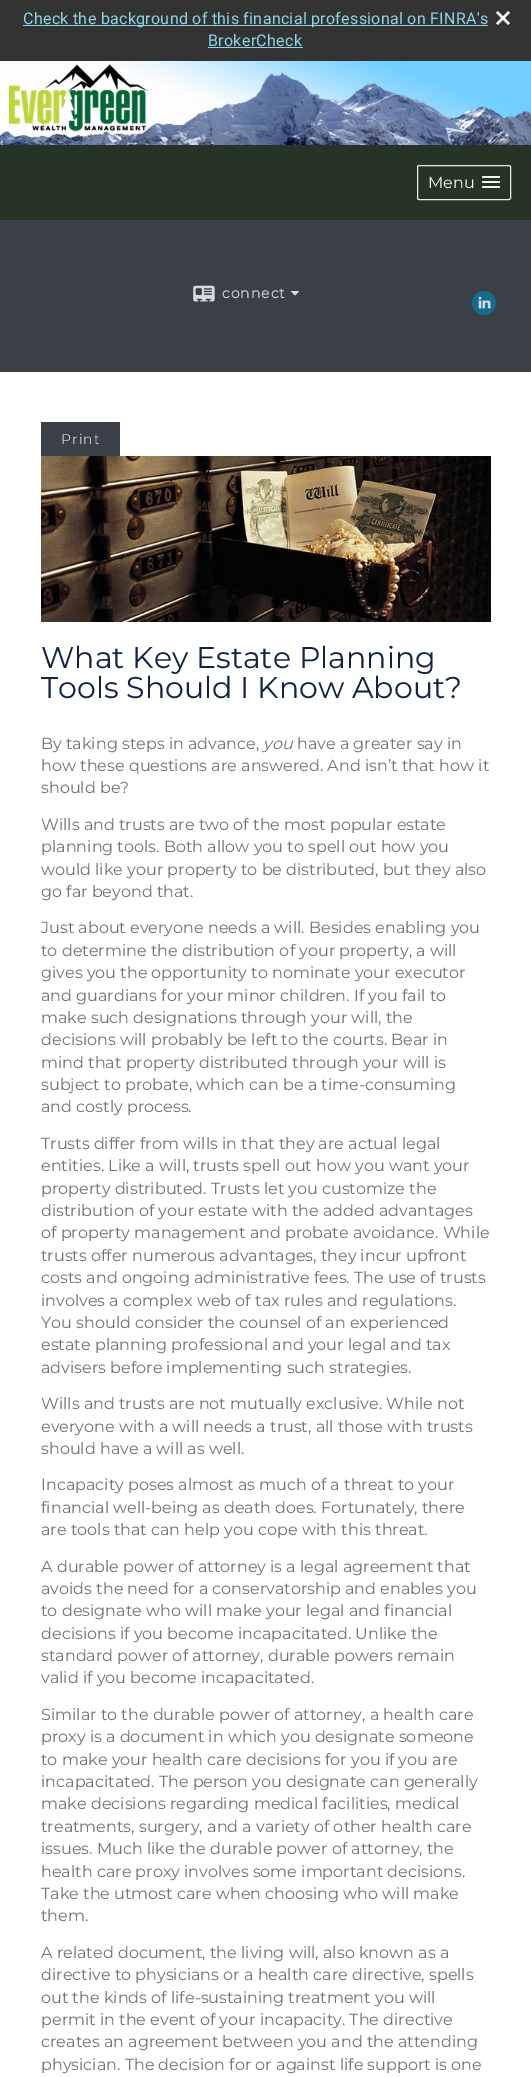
%!PS
<< /PageSize [531 2077] >> setpagedevice
/mt/moveto load def
/fl/fill load def
/st/stroke load def
/co { dup -16 bitshift 255 div exch dup -8 bitshift 255 and 255 div exch 255 and 255 div setrgbcolor } def
/fn { [ exch dup neg 0 0 3 -1 roll 0 0 ] selectfont } def
/tx { co fn moveto show } def
/bx { co rectfill } def
/rr { 5 dict begin { /r /h /w /y /x } { exch def } forall
  x r add y moveto x w add y 2 copy h add r arct x w add y h add x 1 index r arct
  x y h add x y r arct x y 2 copy exch w add exch r arct closepath end } def
/im { 5 dict begin { /h /w /y /x /name } { exch def } forall
  gsave x y translate w h scale
  w h 8 [w 0 0 h 0 0] name (r) file false 3 colorimage grestore end } def
0 2077 translate 1 -1 scale
4 setmiterlimit
0 0 531 2077 16#253425 bx
0 0 531 61 16#333333 bx
23 25 465 1 16#8ED3E7 bx
(media/1.raw) 496 11 14 14 im
208 47 95 1 16#8ED3E7 bx
(media/2.raw) 0 61 531 84 im
16#ECECEC co
417.5 165.5 93 34 1.5 rr st
16#F3F3EF co
482 176 18 2 1 rr fl
482 181 18 2 1 rr fl
482 186 18 2 1 rr fl
0 220 531 152 16#3B4046 bx
(media/3.raw) 193 285 22 17 im
(media/4.raw) 291 291 8 5 im
(media/5.raw) 472 291 24 24 im
0 372 531 1705 16#FFFFFF bx
41 422 79 34 16#3B4046 bx
(media/6.raw) 41 456 450 166 im
/Roboto-Regular 16 fn
16#8ED3E7 co
23 24 mt .3 0 (Check the background of this financial professional on FINRA's) ashow
208 46 mt .3 0 (BrokerCheck) ashow
(Menu) 428 188 /Montserrat-Regular 16 16#F3F3EF tx
/Montserrat-Bold 14 fn
16#D8D9DA co
222 298 mt 1 0 (connect) ashow
/Montserrat-Light 14 fn
16#FFFFFF co
61 444 mt 1 0 (Print) ashow
(What Key Estate Planning) 41 668 /Montserrat-Regular 30 16#122442 tx
(Tools Should I Know About?) 41 698 /Montserrat-Regular 30 16#122442 tx
(By taking steps in advance,) 41 749 /Montserrat-Regular 16 16#737373 tx
(you) 263 749 /Montserrat-Italic 16 16#737373 tx
(have a greater say in) 297 749 /Montserrat-Regular 16 16#737373 tx
(how these questions are answered. And isn’t that how it) 41 771 /Montserrat-Regular 16 16#737373 tx
(should be?) 41 793 /Montserrat-Regular 16 16#737373 tx
(Wills and trusts are two of the most popular estate) 41 830 /Montserrat-Regular 16 16#737373 tx
(planning tools. Both allow you to spell out how you) 41 852 /Montserrat-Regular 16 16#737373 tx
(would like your property to be distributed, but they also) 41 875 /Montserrat-Regular 16 16#737373 tx
(go far beyond that.) 41 897 /Montserrat-Regular 16 16#737373 tx
(Just about everyone needs a will. Besides enabling you) 41 933 /Montserrat-Regular 16 16#737373 tx
(to determine the distribution of your property, a will) 41 956 /Montserrat-Regular 16 16#737373 tx
(gives you the opportunity to nominate your executor) 41 978 /Montserrat-Regular 16 16#737373 tx
(and guardians for your minor children. If you fail to) 41 1001 /Montserrat-Regular 16 16#737373 tx
(make such designations through your will, the) 41 1023 /Montserrat-Regular 16 16#737373 tx
(decisions will probably be left to the courts. Bear in) 41 1045 /Montserrat-Regular 16 16#737373 tx
(mind that property distributed through your will is) 41 1068 /Montserrat-Regular 16 16#737373 tx
(subject to probate, which can be a time-consuming) 41 1090 /Montserrat-Regular 16 16#737373 tx
(and costly process.) 41 1112 /Montserrat-Regular 16 16#737373 tx
(Trusts differ from wills in that they are actual legal) 41 1149 /Montserrat-Regular 16 16#737373 tx
(entities. Like a will, trusts spell out how you want your) 41 1171 /Montserrat-Regular 16 16#737373 tx
(property distributed. Trusts let you customize the) 41 1194 /Montserrat-Regular 16 16#737373 tx
(distribution of your estate with the added advantages) 41 1216 /Montserrat-Regular 16 16#737373 tx
(of property management and probate avoidance. While) 41 1238 /Montserrat-Regular 16 16#737373 tx
(trusts offer numerous advantages, they incur upfront) 41 1261 /Montserrat-Regular 16 16#737373 tx
(costs and ongoing administrative fees. The use of trusts) 41 1283 /Montserrat-Regular 16 16#737373 tx
(involves a complex web of tax rules and regulations.) 41 1306 /Montserrat-Regular 16 16#737373 tx
(You should consider the counsel of an experienced) 41 1328 /Montserrat-Regular 16 16#737373 tx
(estate planning professional and your legal and tax) 41 1350 /Montserrat-Regular 16 16#737373 tx
(advisers before implementing such strategies.) 41 1373 /Montserrat-Regular 16 16#737373 tx
(Wills and trusts are not mutually exclusive. While not) 41 1409 /Montserrat-Regular 16 16#737373 tx
(everyone with a will needs a trust, all those with trusts) 41 1432 /Montserrat-Regular 16 16#737373 tx
(should have a will as well.) 41 1454 /Montserrat-Regular 16 16#737373 tx
(Incapacity poses almost as much of a threat to your) 41 1490 /Montserrat-Regular 16 16#737373 tx
(financial well-being as death does. Fortunately, there) 41 1513 /Montserrat-Regular 16 16#737373 tx
(are tools that can help you cope with this threat.) 41 1535 /Montserrat-Regular 16 16#737373 tx
(A durable power of attorney is a legal agreement that) 41 1572 /Montserrat-Regular 16 16#737373 tx
(avoids the need for a conservatorship and enables you) 41 1594 /Montserrat-Regular 16 16#737373 tx
(to designate who will make your legal and financial) 41 1616 /Montserrat-Regular 16 16#737373 tx
(decisions if you become incapacitated. Unlike the) 41 1639 /Montserrat-Regular 16 16#737373 tx
(standard power of attorney, durable powers remain) 41 1661 /Montserrat-Regular 16 16#737373 tx
(valid if you become incapacitated.) 41 1683 /Montserrat-Regular 16 16#737373 tx
(Similar to the durable power of attorney, a health care) 41 1720 /Montserrat-Regular 16 16#737373 tx
(proxy is a document in which you designate someone) 41 1742 /Montserrat-Regular 16 16#737373 tx
(to make your health care decisions for you if you are) 41 1765 /Montserrat-Regular 16 16#737373 tx
(incapacitated. The person you designate can generally) 41 1787 /Montserrat-Regular 16 16#737373 tx
(make decisions regarding medical facilities, medical) 41 1809 /Montserrat-Regular 16 16#737373 tx
(treatments, surgery, and a variety of other health care) 41 1832 /Montserrat-Regular 16 16#737373 tx
(issues. Much like the durable power of attorney, the) 41 1854 /Montserrat-Regular 16 16#737373 tx
(health care proxy involves some important decisions.) 41 1877 /Montserrat-Regular 16 16#737373 tx
(Take the utmost care when choosing who will make) 41 1899 /Montserrat-Regular 16 16#737373 tx
(them.) 41 1921 /Montserrat-Regular 16 16#737373 tx
(A related document, the living will, also known as a) 41 1958 /Montserrat-Regular 16 16#737373 tx
(directive to physicians or a health care directive, spells) 41 1980 /Montserrat-Regular 16 16#737373 tx
(out the kinds of life-sustaining treatment you will) 41 2003 /Montserrat-Regular 16 16#737373 tx
(permit in the event of your incapacity. The directive) 41 2025 /Montserrat-Regular 16 16#737373 tx
(creates an agreement between you and the attending) 41 2047 /Montserrat-Regular 16 16#737373 tx
(physician. The decision for or against life support is one) 41 2070 /Montserrat-Regular 16 16#737373 tx
showpage
